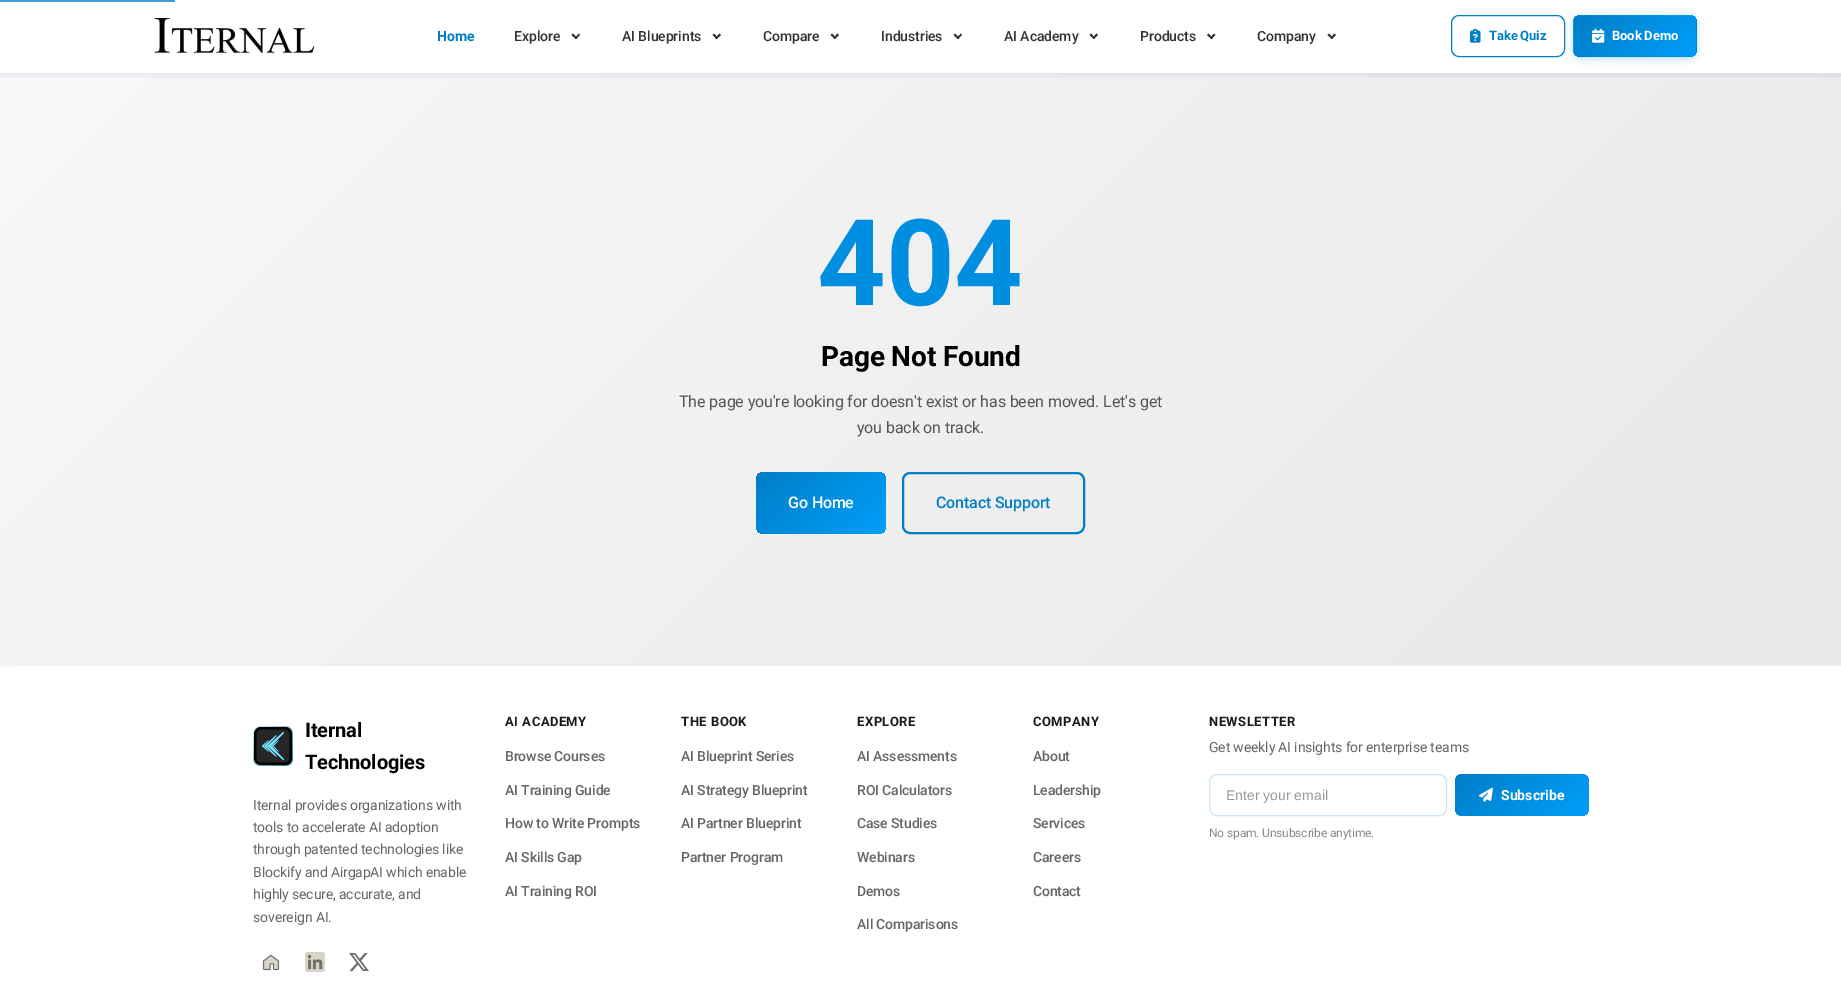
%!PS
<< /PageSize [1841 986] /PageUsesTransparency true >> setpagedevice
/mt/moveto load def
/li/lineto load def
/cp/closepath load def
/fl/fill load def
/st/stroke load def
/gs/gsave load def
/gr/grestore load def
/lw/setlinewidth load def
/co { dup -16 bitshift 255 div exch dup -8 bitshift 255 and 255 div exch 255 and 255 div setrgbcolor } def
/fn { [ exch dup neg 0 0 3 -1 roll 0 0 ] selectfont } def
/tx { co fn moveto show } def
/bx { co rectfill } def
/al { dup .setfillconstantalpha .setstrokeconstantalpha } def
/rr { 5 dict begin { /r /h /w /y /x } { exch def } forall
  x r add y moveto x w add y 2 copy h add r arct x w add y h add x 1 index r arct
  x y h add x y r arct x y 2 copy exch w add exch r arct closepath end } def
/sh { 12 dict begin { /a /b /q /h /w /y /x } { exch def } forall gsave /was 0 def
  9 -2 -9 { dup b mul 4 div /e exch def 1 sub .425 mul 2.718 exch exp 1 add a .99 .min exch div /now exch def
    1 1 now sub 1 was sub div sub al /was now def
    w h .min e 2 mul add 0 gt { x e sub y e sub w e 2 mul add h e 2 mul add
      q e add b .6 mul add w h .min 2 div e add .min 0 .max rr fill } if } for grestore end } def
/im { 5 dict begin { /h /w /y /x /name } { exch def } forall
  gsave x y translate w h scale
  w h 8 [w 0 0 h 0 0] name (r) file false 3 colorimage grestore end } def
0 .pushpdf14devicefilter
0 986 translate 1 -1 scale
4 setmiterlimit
0 0 1841 986 16#FFFFFF bx
0 0 175 2 16#409ED5 bx
gs 0 73 mt 1841 73 li 1841 665 li 0 665 li cp clip newpath
<< /ShadingType 2 /ColorSpace /DeviceRGB /Coords [312 -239 1529 977] /Extend [true true] /Function << /FunctionType 2 /Domain [0 1] /C0 [.973 .973 .973] /C1 [.91 .91 .91] /N 1 >> >> shfill gr
gs
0 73 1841 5 rectclip
16#1F2687 co
0 2 1841 73 0 4 .1 sh
gr
(media/1.raw) 154 18 161 36 im
16#333333 co
579 33.5 mt 580 35 li 576 39 li 574.5 38 li cp fl
573 33.5 mt 577.5 38 li 576 39 li 571.5 35 li cp fl
719.5 33.5 mt 721 35 li 716.5 39 li 715 38 li cp fl
714 33.5 mt 718 38 li 716.5 39 li 712.5 35 li cp fl
837.5 33.5 mt 839 35 li 835 39 li 833.5 38 li cp fl
832 33.5 mt 836 38 li 835 39 li 830.5 35 li cp fl
961 33.5 mt 962 35 li 958 39 li 956.5 38 li cp fl
955 33.5 mt 959.5 38 li 958 39 li 953.5 35 li cp fl
1096.5 33.5 mt 1098 35 li 1094 39 li 1092.5 38 li cp fl
1091 33.5 mt 1095 38 li 1094 39 li 1089.5 35 li cp fl
1214 33.5 mt 1215.5 35 li 1211.5 39 li 1210 38 li cp fl
1208.5 33.5 mt 1213 38 li 1211.5 39 li 1207 35 li cp fl
1334.5 33.5 mt 1336 35 li 1332 39 li 1330.5 38 li cp fl
1329 33.5 mt 1333 38 li 1332 39 li 1327.5 35 li cp fl
16#007EC7 co
1451.5 15.5 113 41 7.5 rr st
(media/2.raw) 1470 28 11 15 im
1573 17 124 42 8 4 .25 sh
gs
1573 15 124 42 8 rr clip newpath
gs 1574 15 mt 1696 15 li 1696 16 li 1574 16 li cp clip newpath
<< /ShadingType 2 /ColorSpace /DeviceRGB /Coords [1595 -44 1676 37] /Extend [true true] /Function << /FunctionType 2 /Domain [0 1] /C0 [0 .494 .78] /C1 [0 .62 .976] /N 1 >> >> shfill gr
gs 1573 16 mt 1574 16 li 1574 56 li 1573 56 li cp clip newpath
<< /ShadingType 2 /ColorSpace /DeviceRGB /Coords [1473 -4.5 1554 77] /Extend [true true] /Function << /FunctionType 2 /Domain [0 1] /C0 [0 .494 .78] /C1 [0 .62 .976] /N 1 >> >> shfill gr
gs 1574 16 mt 1696 16 li 1696 56 li 1574 56 li cp clip newpath
<< /ShadingType 2 /ColorSpace /DeviceRGB /Coords [1595 -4.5 1676 77] /Extend [true true] /Function << /FunctionType 2 /Domain [0 1] /C0 [0 .494 .78] /C1 [0 .62 .976] /N 1 >> >> shfill gr
gs 1696 16 mt 1697 16 li 1697 56 li 1696 56 li cp clip newpath
<< /ShadingType 2 /ColorSpace /DeviceRGB /Coords [1717 -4.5 1798 77] /Extend [true true] /Function << /FunctionType 2 /Domain [0 1] /C0 [0 .494 .78] /C1 [0 .62 .976] /N 1 >> >> shfill gr
gs 1574 56 mt 1696 56 li 1696 57 li 1574 57 li cp clip newpath
<< /ShadingType 2 /ColorSpace /DeviceRGB /Coords [1595 36 1676 117] /Extend [true true] /Function << /FunctionType 2 /Domain [0 1] /C0 [0 .494 .78] /C1 [0 .62 .976] /N 1 >> >> shfill gr
gr
(media/3.raw) 1592 28 13 15 im
gs 756 472 130 62 8 rr clip newpath
<< /ShadingType 2 /ColorSpace /DeviceRGB /Coords [773 455 869 551] /Extend [true true] /Function << /FunctionType 2 /Domain [0 1] /C0 [0 .494 .78] /C1 [0 .62 .976] /N 1 >> >> shfill gr
2 lw
903 473 181 60 7 rr st
0 665 1841 1 16#EFEFED bx
(media/4.raw) 253 726 40 40 im
(media/5.raw) 262 954 18 17 im
(media/6.raw) 305 952 20 20 im
(media/7.raw) 349 952 20 20 im
16#CCE5F4 co
1 lw
1209.5 774.5 237 41 7.5 rr st
gs 1455 774 134 42 8 rr clip newpath
<< /ShadingType 2 /ColorSpace /DeviceRGB /Coords [1478 751 1566 839] /Extend [true true] /Function << /FunctionType 2 /Domain [0 1] /C0 [0 .494 .78] /C1 [0 .62 .976] /N 1 >> >> shfill gr
(media/8.raw) 1479 787 14 15 im
/Roboto-Bold 14 fn
16#007EC7 co
437 41 mt -.1 0 (Home) ashow
/Roboto-Medium 14 fn
16#333333 co
514 41 mt -.1 0 (Explore) ashow
622 41 mt -.1 0 (AI Blueprints) ashow
763 41 mt -.1 0 (Compare) ashow
881 41 mt -.1 0 (Industries) ashow
1004 41 mt -.1 0 (AI Academy) ashow
1140 41 mt -.1 0 (Products) ashow
1257 41 mt -.1 0 (Company) ashow
/Roboto-Bold 13 fn
16#007EC7 co
1489 40 mt -.15 0 (Take Quiz) ashow
16#FFFFFF co
1612 40 mt -.15 0 (Book Demo) ashow
/Roboto-Bold 120 fn
16#008EE0 co
817 305 mt -.15 0 (404) ashow
/Roboto-Bold 28 fn
16#000000 co
821 366 mt -.15 0 (Page Not Found) ashow
/Roboto-Regular 16 fn
16#555555 co
679 407 mt -.15 0 (The page you're looking for doesn't exist or has been moved. Let's get) ashow
857 433 mt -.15 0 (you back on track.) ashow
/Roboto-Medium 16 fn
16#FFFFFF co
788 508 mt -.15 0 (Go Home) ashow
16#007EC7 co
936 508 mt -.15 0 (Contact Support) ashow
/Roboto-Bold 20 fn
16#000000 co
305 737 mt -.15 0 (Iternal) ashow
305 769 mt -.15 0 (Technologies) ashow
/Roboto-Regular 14 fn
16#666666 co
253 810 mt -.15 0 (Iternal provides organizations with) ashow
253 832 mt -.15 0 (tools to accelerate AI adoption) ashow
253 854 mt -.15 0 (through patented technologies like) ashow
253 877 mt -.15 0 (Blockify and AirgapAI which enable) ashow
253 899 mt -.15 0 (highly secure, accurate, and) ashow
253 922 mt -.15 0 (sovereign AI.) ashow
/Roboto-Bold 13 fn
16#1A1A1A co
505 726 mt .5 0 (AI ACADEMY) ashow
/Roboto-Medium 14 fn
16#666666 co
505 761 mt -.15 0 (Browse Courses) ashow
505 795 mt -.15 0 (AI Training Guide) ashow
505 828 mt -.15 0 (How to Write Prompts) ashow
505 862 mt -.15 0 (AI Skills Gap) ashow
505 896 mt -.15 0 (AI Training ROI) ashow
/Roboto-Bold 13 fn
16#1A1A1A co
681 726 mt .5 0 (THE BOOK) ashow
/Roboto-Medium 14 fn
16#666666 co
681 761 mt -.15 0 (AI Blueprint Series) ashow
681 795 mt -.15 0 (AI Strategy Blueprint) ashow
681 828 mt -.15 0 (AI Partner Blueprint) ashow
681 862 mt -.15 0 (Partner Program) ashow
/Roboto-Bold 13 fn
16#1A1A1A co
857 726 mt .5 0 (EXPLORE) ashow
/Roboto-Medium 14 fn
16#666666 co
857 761 mt -.15 0 (AI Assessments) ashow
857 795 mt -.15 0 (ROI Calculators) ashow
857 828 mt -.15 0 (Case Studies) ashow
857 862 mt -.15 0 (Webinars) ashow
857 896 mt -.15 0 (Demos) ashow
857 929 mt -.15 0 (All Comparisons) ashow
/Roboto-Bold 13 fn
16#1A1A1A co
1033 726 mt .5 0 (COMPANY) ashow
/Roboto-Medium 14 fn
16#666666 co
1033 761 mt -.15 0 (About) ashow
1033 795 mt -.15 0 (Leadership) ashow
1033 828 mt -.15 0 (Services) ashow
1033 862 mt -.15 0 (Careers) ashow
1033 896 mt -.15 0 (Contact) ashow
/Roboto-Bold 13 fn
16#1A1A1A co
1209 726 mt .5 0 (NEWSLETTER) ashow
/Roboto-Regular 14 fn
16#666666 co
1209 752 mt -.15 0 (Get weekly AI insights for enterprise teams) ashow
(Enter your email) 1226 800 /LiberationSans-Regular 14 16#999999 tx
(Subscribe) 1501 800 /Roboto-Bold 14 16#FFFFFF tx
/Roboto-Regular 12 fn
16#888888 co
1209 837 mt -.15 0 (No spam. Unsubscribe anytime.) ashow
.poppdf14devicefilter showpage
